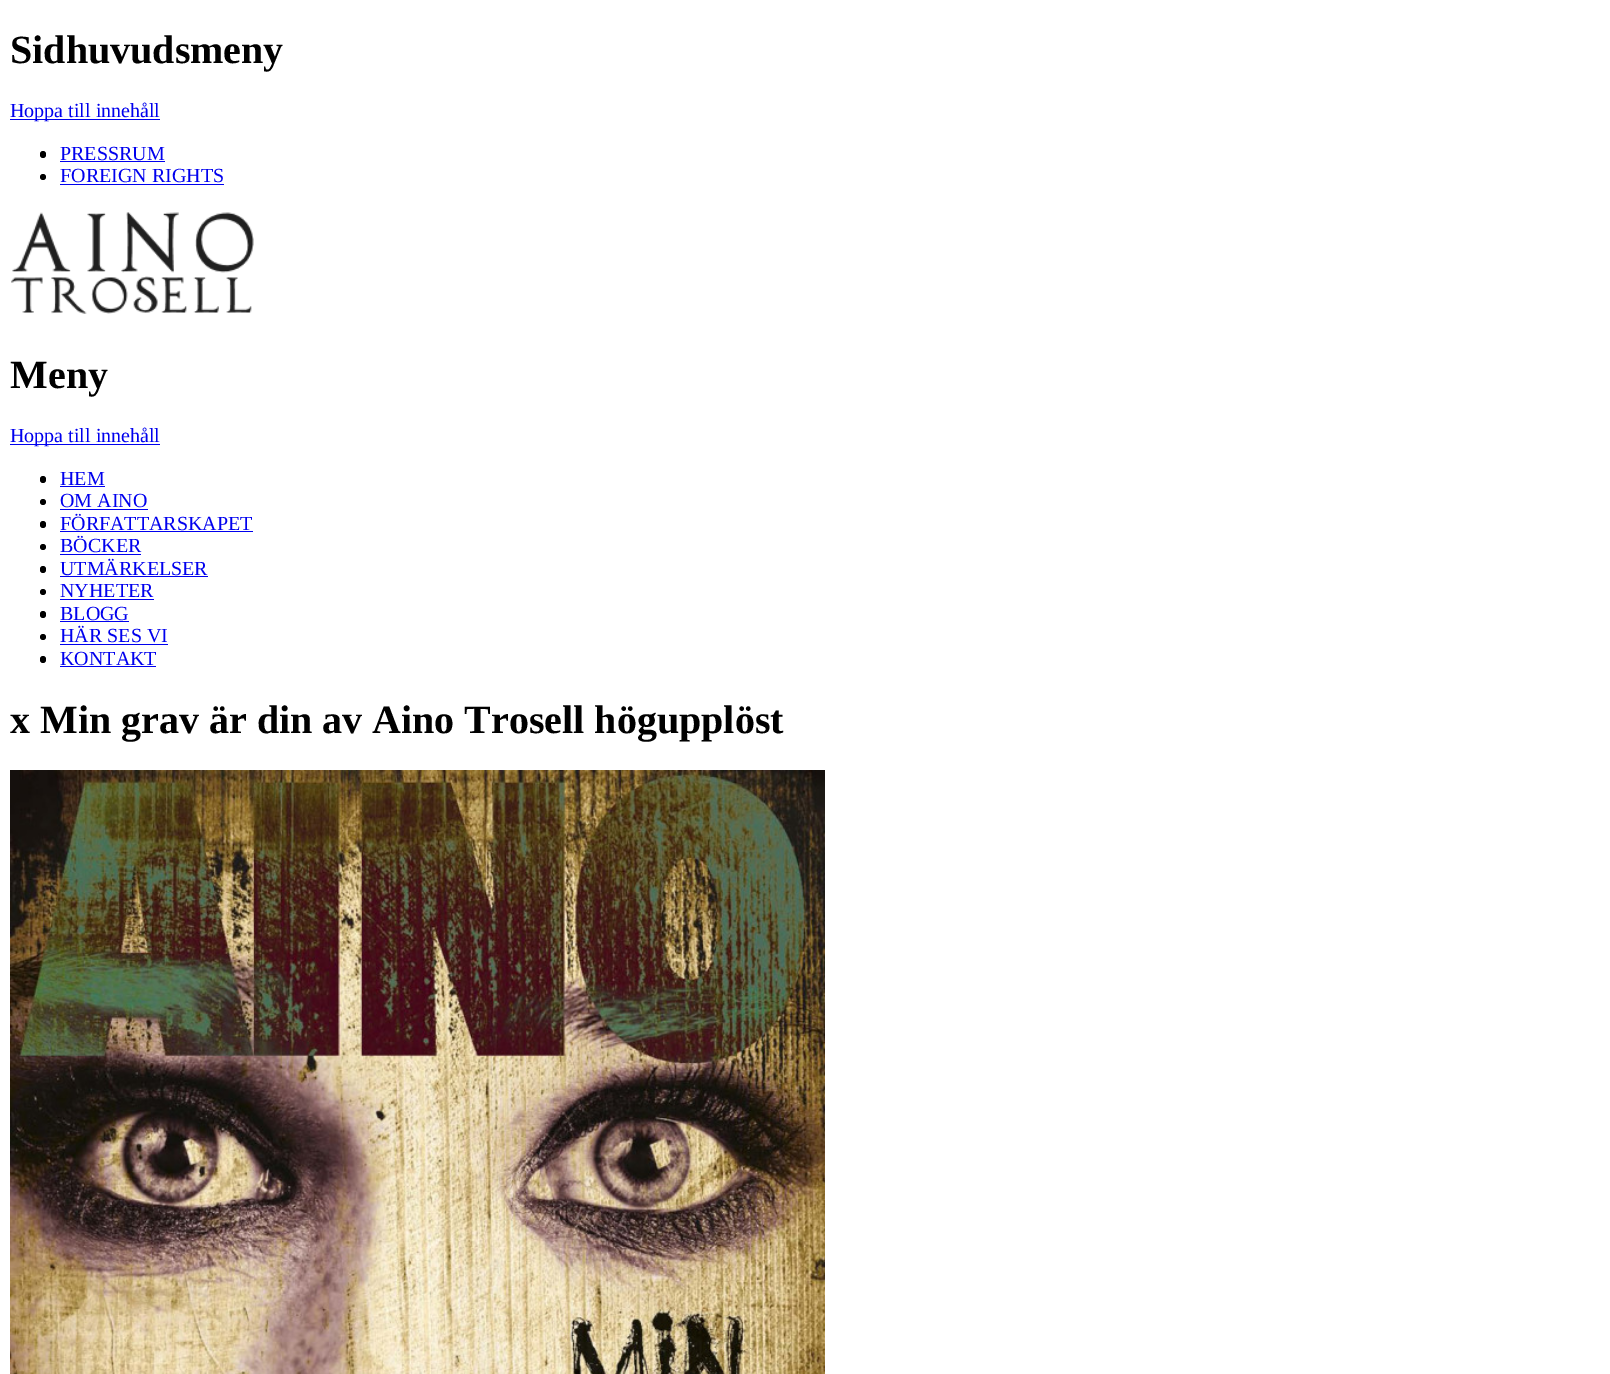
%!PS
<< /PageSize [1610 1374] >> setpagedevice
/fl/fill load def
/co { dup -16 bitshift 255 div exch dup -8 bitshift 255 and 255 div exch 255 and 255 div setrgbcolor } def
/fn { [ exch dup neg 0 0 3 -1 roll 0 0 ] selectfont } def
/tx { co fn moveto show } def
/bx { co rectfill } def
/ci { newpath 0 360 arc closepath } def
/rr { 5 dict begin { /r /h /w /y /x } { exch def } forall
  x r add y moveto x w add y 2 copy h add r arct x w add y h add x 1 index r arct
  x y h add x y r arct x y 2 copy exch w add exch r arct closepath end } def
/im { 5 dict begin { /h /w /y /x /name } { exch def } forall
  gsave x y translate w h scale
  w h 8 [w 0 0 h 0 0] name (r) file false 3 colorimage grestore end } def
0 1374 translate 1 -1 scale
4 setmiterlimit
0 0 1610 1374 16#FFFFFF bx
10 119 150 1 16#0000EE bx
16#000000 co
40 151 6 7 3 rr fl
60 161 105 1 16#0000EE bx
16#000000 co
43 177 3 ci fl
60 184 164 1 16#0000EE bx
(media/1.raw) 11 212 243 102 im
10 444 150 1 16#0000EE bx
16#000000 co
40 476 6 7 3 rr fl
60 486 45 1 16#0000EE bx
16#000000 co
43 502 3 ci fl
60 509 88 1 16#0000EE bx
16#000000 co
40 521 6 7 3 rr fl
60 531 193 1 16#0000EE bx
16#000000 co
43 547 3 ci fl
60 554 81 1 16#0000EE bx
16#000000 co
40 566 6 7 3 rr fl
60 576 148 1 16#0000EE bx
16#000000 co
43 592 3 ci fl
60 599 94 1 16#0000EE bx
16#000000 co
40 611 6 7 3 rr fl
60 621 69 1 16#0000EE bx
16#000000 co
43 637 3 ci fl
60 644 108 1 16#0000EE bx
16#000000 co
40 656 6 7 3 rr fl
60 666 96 1 16#0000EE bx
(media/2.raw) 10 770 815 604 im
(Sidhuvudsmeny) 10 63 /LiberationSerif-Bold 40 16#000000 tx
(Hoppa till innehåll) 10 117 /LiberationSerif-Regular 20 16#0000EE tx
(PRESSRUM) 60 160 /LiberationSerif-Regular 20 16#0000EE tx
(FOREIGN RIGHTS) 60 182 /LiberationSerif-Regular 20 16#0000EE tx
(Meny) 10 388 /LiberationSerif-Bold 40 16#000000 tx
(Hoppa till innehåll) 10 442 /LiberationSerif-Regular 20 16#0000EE tx
(HEM) 60 485 /LiberationSerif-Regular 20 16#0000EE tx
(OM AINO) 60 507 /LiberationSerif-Regular 20 16#0000EE tx
(FÖRFATTARSKAPET) 60 530 /LiberationSerif-Regular 20 16#0000EE tx
(BÖCKER) 60 552 /LiberationSerif-Regular 20 16#0000EE tx
(UTMÄRKELSER) 60 575 /LiberationSerif-Regular 20 16#0000EE tx
(NYHETER) 60 597 /LiberationSerif-Regular 20 16#0000EE tx
(BLOGG) 60 620 /LiberationSerif-Regular 20 16#0000EE tx
(HÄR SES VI) 60 642 /LiberationSerif-Regular 20 16#0000EE tx
(KONTAKT) 60 665 /LiberationSerif-Regular 20 16#0000EE tx
(x Min grav är din av Aino Trosell högupplöst) 10 733 /LiberationSerif-Bold 40 16#000000 tx
showpage
